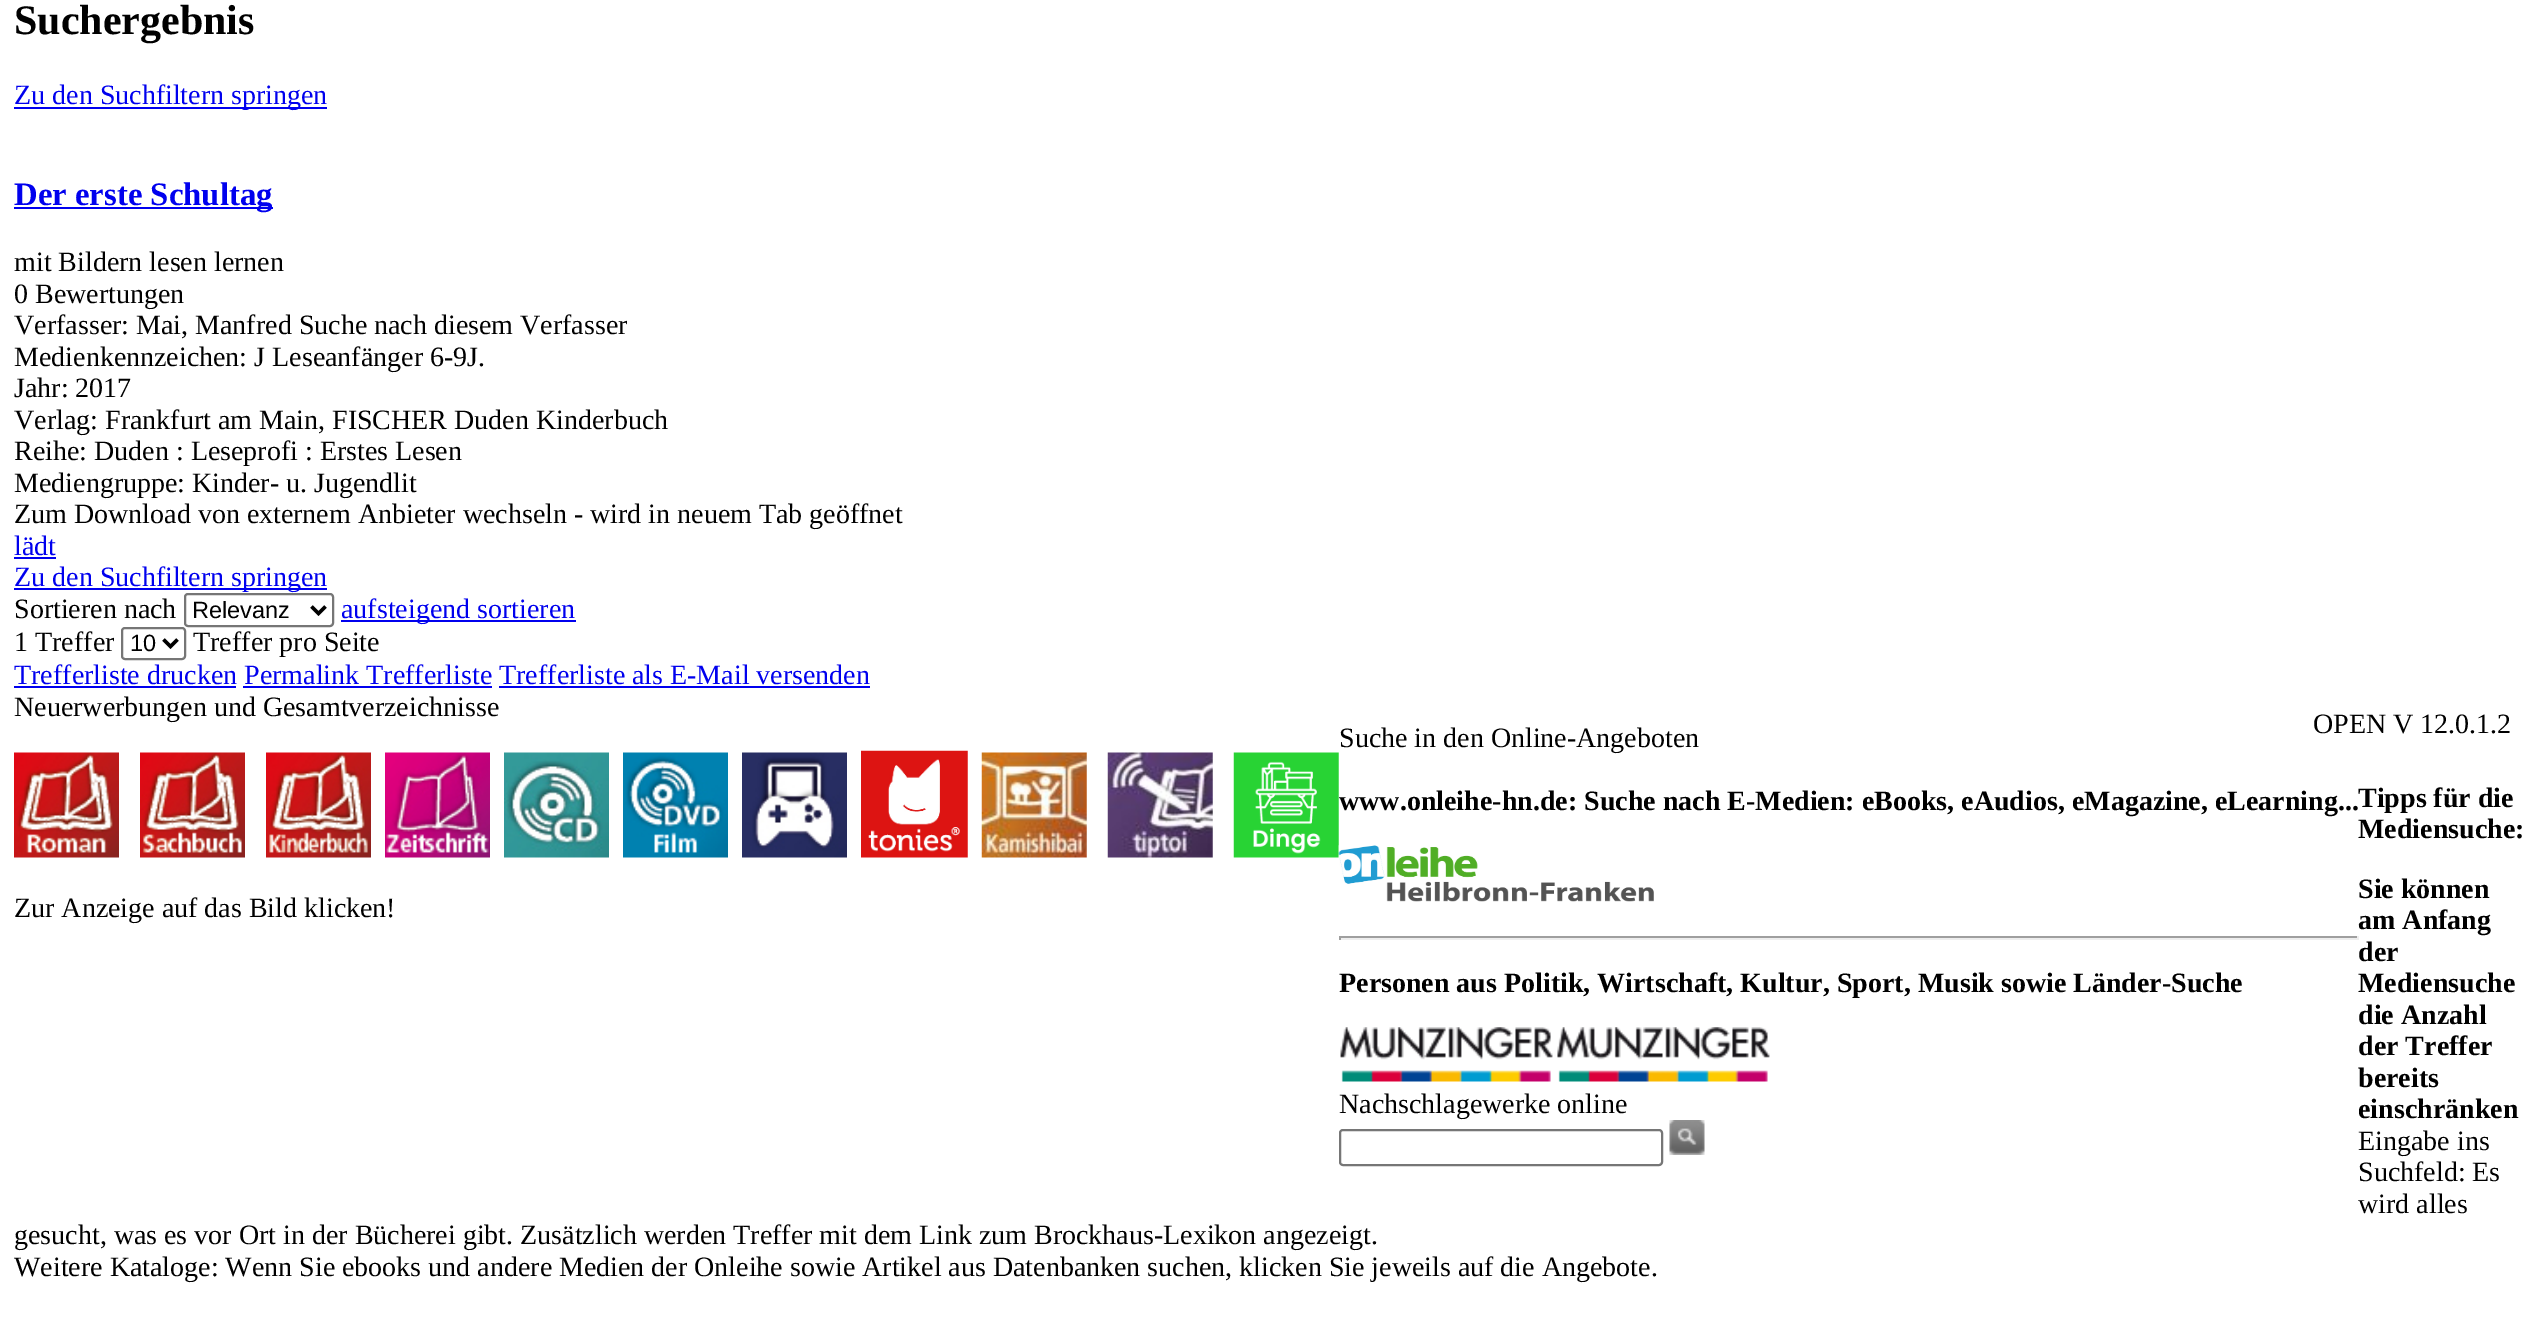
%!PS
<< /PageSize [2542 1329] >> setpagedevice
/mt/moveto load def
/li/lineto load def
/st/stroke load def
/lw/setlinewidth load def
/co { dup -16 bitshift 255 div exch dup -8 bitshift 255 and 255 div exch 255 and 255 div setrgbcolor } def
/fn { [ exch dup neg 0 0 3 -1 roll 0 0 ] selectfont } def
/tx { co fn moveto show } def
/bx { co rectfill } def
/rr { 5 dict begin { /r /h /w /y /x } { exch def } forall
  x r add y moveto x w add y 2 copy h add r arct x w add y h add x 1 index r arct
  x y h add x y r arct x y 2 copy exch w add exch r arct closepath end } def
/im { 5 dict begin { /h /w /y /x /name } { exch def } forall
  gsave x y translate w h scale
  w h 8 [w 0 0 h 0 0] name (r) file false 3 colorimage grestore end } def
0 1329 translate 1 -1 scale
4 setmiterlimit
0 0 2542 1329 16#FFFFFF bx
14 107 313 2 16#0000EE bx
14 207 259 2 16#0000EE bx
14 557 42 2 16#0000EE bx
14 588 313 2 16#0000EE bx
16#767676 co
2 lw
185 594 148 32 3 rr st
16#000000 co
3.5 lw
311.5 606.5 mt 318.5 613.5 li 325.5 606.5 li st
341 620 235 2 16#0000EE bx
16#767676 co
2 lw
122 628 63 31 3 rr st
16#000000 co
3.5 lw
163.5 639.5 mt 170.5 646.5 li 177.5 639.5 li st
14 686 222 2 16#0000EE bx
243 686 249 2 16#0000EE bx
499 686 371 2 16#0000EE bx
(media/1.raw) 14 752 105 106 im
(media/2.raw) 140 752 105 106 im
(media/3.raw) 266 752 105 106 im
(media/4.raw) 385 752 105 106 im
(media/5.raw) 504 752 105 106 im
(media/6.raw) 623 752 105 106 im
(media/7.raw) 742 752 105 106 im
(media/8.raw) 861 750 107 108 im
(media/9.raw) 981 752 106 106 im
(media/10.raw) 1107 752 106 106 im
(media/11.raw) 1233 752 106 106 im
(media/12.raw) 1338 845 316 57 im
1339 936 1020 2 16#9F9F9F bx
2357 936 2 4 16#EEEEEE bx
1339 938 1020 2 16#EEEEEE bx
1339 936 2 4 16#9F9F9F bx
(media/13.raw) 1340 1027 213 55 im
(media/14.raw) 1557 1027 213 55 im
16#767676 co
2 lw
1340 1130 322 35 3 rr st
(media/15.raw) 1669 1120 36 35 im
(Suchergebnis) 14 34 /LiberationSerif-Bold 42 16#000000 tx
(Zu den Suchfiltern springen) 14 104 /LiberationSerif-Regular 28 16#0000EE tx
(Der erste Schultag) 14 205 /LiberationSerif-Bold 32.75 16#0000EE tx
(mit Bildern lesen lernen) 14 271 /LiberationSerif-Regular 28 16#000000 tx
(0 Bewertungen) 14 303 /LiberationSerif-Regular 28 16#000000 tx
(Verfasser: Mai, Manfred Suche nach diesem Verfasser) 14 334 /LiberationSerif-Regular 28 16#000000 tx
(Medienkennzeichen: J Leseanfänger 6-9J.) 14 366 /LiberationSerif-Regular 28 16#000000 tx
(Jahr: 2017) 14 397 /LiberationSerif-Regular 28 16#000000 tx
(Verlag: Frankfurt am Main, FISCHER Duden Kinderbuch) 14 429 /LiberationSerif-Regular 28 16#000000 tx
(Reihe: Duden : Leseprofi : Erstes Lesen) 14 460 /LiberationSerif-Regular 28 16#000000 tx
(Mediengruppe: Kinder- u. Jugendlit) 14 492 /LiberationSerif-Regular 28 16#000000 tx
(Zum Download von externem Anbieter wechseln - wird in neuem Tab geöffnet) 14 523 /LiberationSerif-Regular 28 16#000000 tx
(lädt) 14 555 /LiberationSerif-Regular 28 16#0000EE tx
(Zu den Suchfiltern springen) 14 586 /LiberationSerif-Regular 28 16#0000EE tx
(Sortieren nach) 14 618 /LiberationSerif-Regular 28 16#000000 tx
(Relevanz) 192 618 /LiberationSans-Regular 23.5 16#000000 tx
(aufsteigend sortieren) 341 618 /LiberationSerif-Regular 28 16#0000EE tx
(1 Treffer) 14 651 /LiberationSerif-Regular 28 16#000000 tx
(10) 130 651 /LiberationSans-Regular 23.5 16#000000 tx
(Treffer pro Seite) 193 651 /LiberationSerif-Regular 28 16#000000 tx
(Trefferliste drucken Permalink Trefferliste Trefferliste als E-Mail versenden) 14 684 /LiberationSerif-Regular 28 16#0000EE tx
(OPEN V 12.0.1.2) 2313 733 /LiberationSerif-Regular 28 16#000000 tx
(Neuerwerbungen und Gesamtverzeichnisse) 14 716 /LiberationSerif-Regular 28 16#000000 tx
(Zur Anzeige auf das Bild klicken!) 14 917 /LiberationSerif-Regular 28 16#000000 tx
(Suche in den Online-Angeboten) 1339 747 /LiberationSerif-Regular 28 16#000000 tx
(www.onleihe-hn.de: Suche nach E-Medien: eBooks, eAudios, eMagazine, eLearning...) 1339 810 /LiberationSerif-Bold 28 16#000000 tx
(Personen aus Politik, Wirtschaft, Kultur, Sport, Musik sowie Länder-Suche) 1339 992 /LiberationSerif-Bold 28 16#000000 tx
(Nachschlagewerke online) 1339 1113 /LiberationSerif-Regular 28 16#000000 tx
(Tipps für die) 2358 807 /LiberationSerif-Bold 28 16#000000 tx
(Mediensuche:) 2358 838 /LiberationSerif-Bold 28 16#000000 tx
(Sie können) 2358 898 /LiberationSerif-Bold 28 16#000000 tx
(am Anfang) 2358 929 /LiberationSerif-Bold 28 16#000000 tx
(der) 2358 961 /LiberationSerif-Bold 28 16#000000 tx
(Mediensuche) 2358 992 /LiberationSerif-Bold 28 16#000000 tx
(die Anzahl) 2358 1024 /LiberationSerif-Bold 28 16#000000 tx
(der Treffer) 2358 1055 /LiberationSerif-Bold 28 16#000000 tx
(bereits) 2358 1087 /LiberationSerif-Bold 28 16#000000 tx
(einschränken) 2358 1118 /LiberationSerif-Bold 28 16#000000 tx
(Eingabe ins) 2358 1150 /LiberationSerif-Regular 28 16#000000 tx
(Suchfeld: Es) 2358 1181 /LiberationSerif-Regular 28 16#000000 tx
(wird alles) 2358 1213 /LiberationSerif-Regular 28 16#000000 tx
(gesucht, was es vor Ort in der Bücherei gibt. Zusätzlich werden Treffer mit dem Link zum Brockhaus-Lexikon angezeigt.) 14 1244 /LiberationSerif-Regular 28 16#000000 tx
(Weitere Kataloge: Wenn Sie ebooks und andere Medien der Onleihe sowie Artikel aus Datenbanken suchen, klicken Sie jeweils auf die Angebote.) 14 1276 /LiberationSerif-Regular 28 16#000000 tx
showpage
